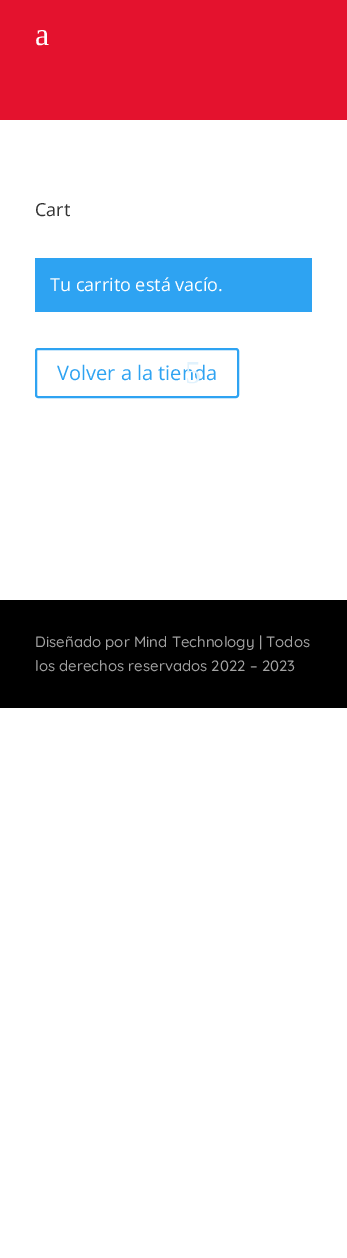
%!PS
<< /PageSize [347 1258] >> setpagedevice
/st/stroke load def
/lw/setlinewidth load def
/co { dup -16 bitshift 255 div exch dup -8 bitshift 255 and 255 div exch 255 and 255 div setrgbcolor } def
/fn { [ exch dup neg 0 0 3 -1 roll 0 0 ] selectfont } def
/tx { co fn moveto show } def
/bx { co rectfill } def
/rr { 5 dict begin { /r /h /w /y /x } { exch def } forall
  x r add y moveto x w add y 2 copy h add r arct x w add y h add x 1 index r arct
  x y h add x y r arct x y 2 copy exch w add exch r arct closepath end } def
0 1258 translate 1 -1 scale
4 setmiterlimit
0 0 347 1258 16#FFFFFF bx
0 0 347 120 16#E4122E bx
35 258 277 54 16#2EA3F2 bx
2 lw
36 349 202 48 2 rr st
0 600 347 108 16#000000 bx
(a) 35 45 /LiberationSerif-Regular 32 16#FFFFFF tx
(Cart) 35 216 /OpenSans-Regular 18 16#333333 tx
(Tu carrito está vacío.) 50 291 /OpenSans-Regular 18 16#FFFFFF tx
(Volver a la tienda) 57 380 /OpenSans-Regular 20 16#2EA3F2 tx
(5) 185 383 /LiberationSerif-Regular 32 16#E1F2FD tx
(Diseñado por Mind Technology | Todos) 35 647 /Quicksand-Medium 15 16#A3A3A3 tx
(los derechos reservados 2022 – 2023) 35 671 /Quicksand-Medium 15 16#A3A3A3 tx
showpage
